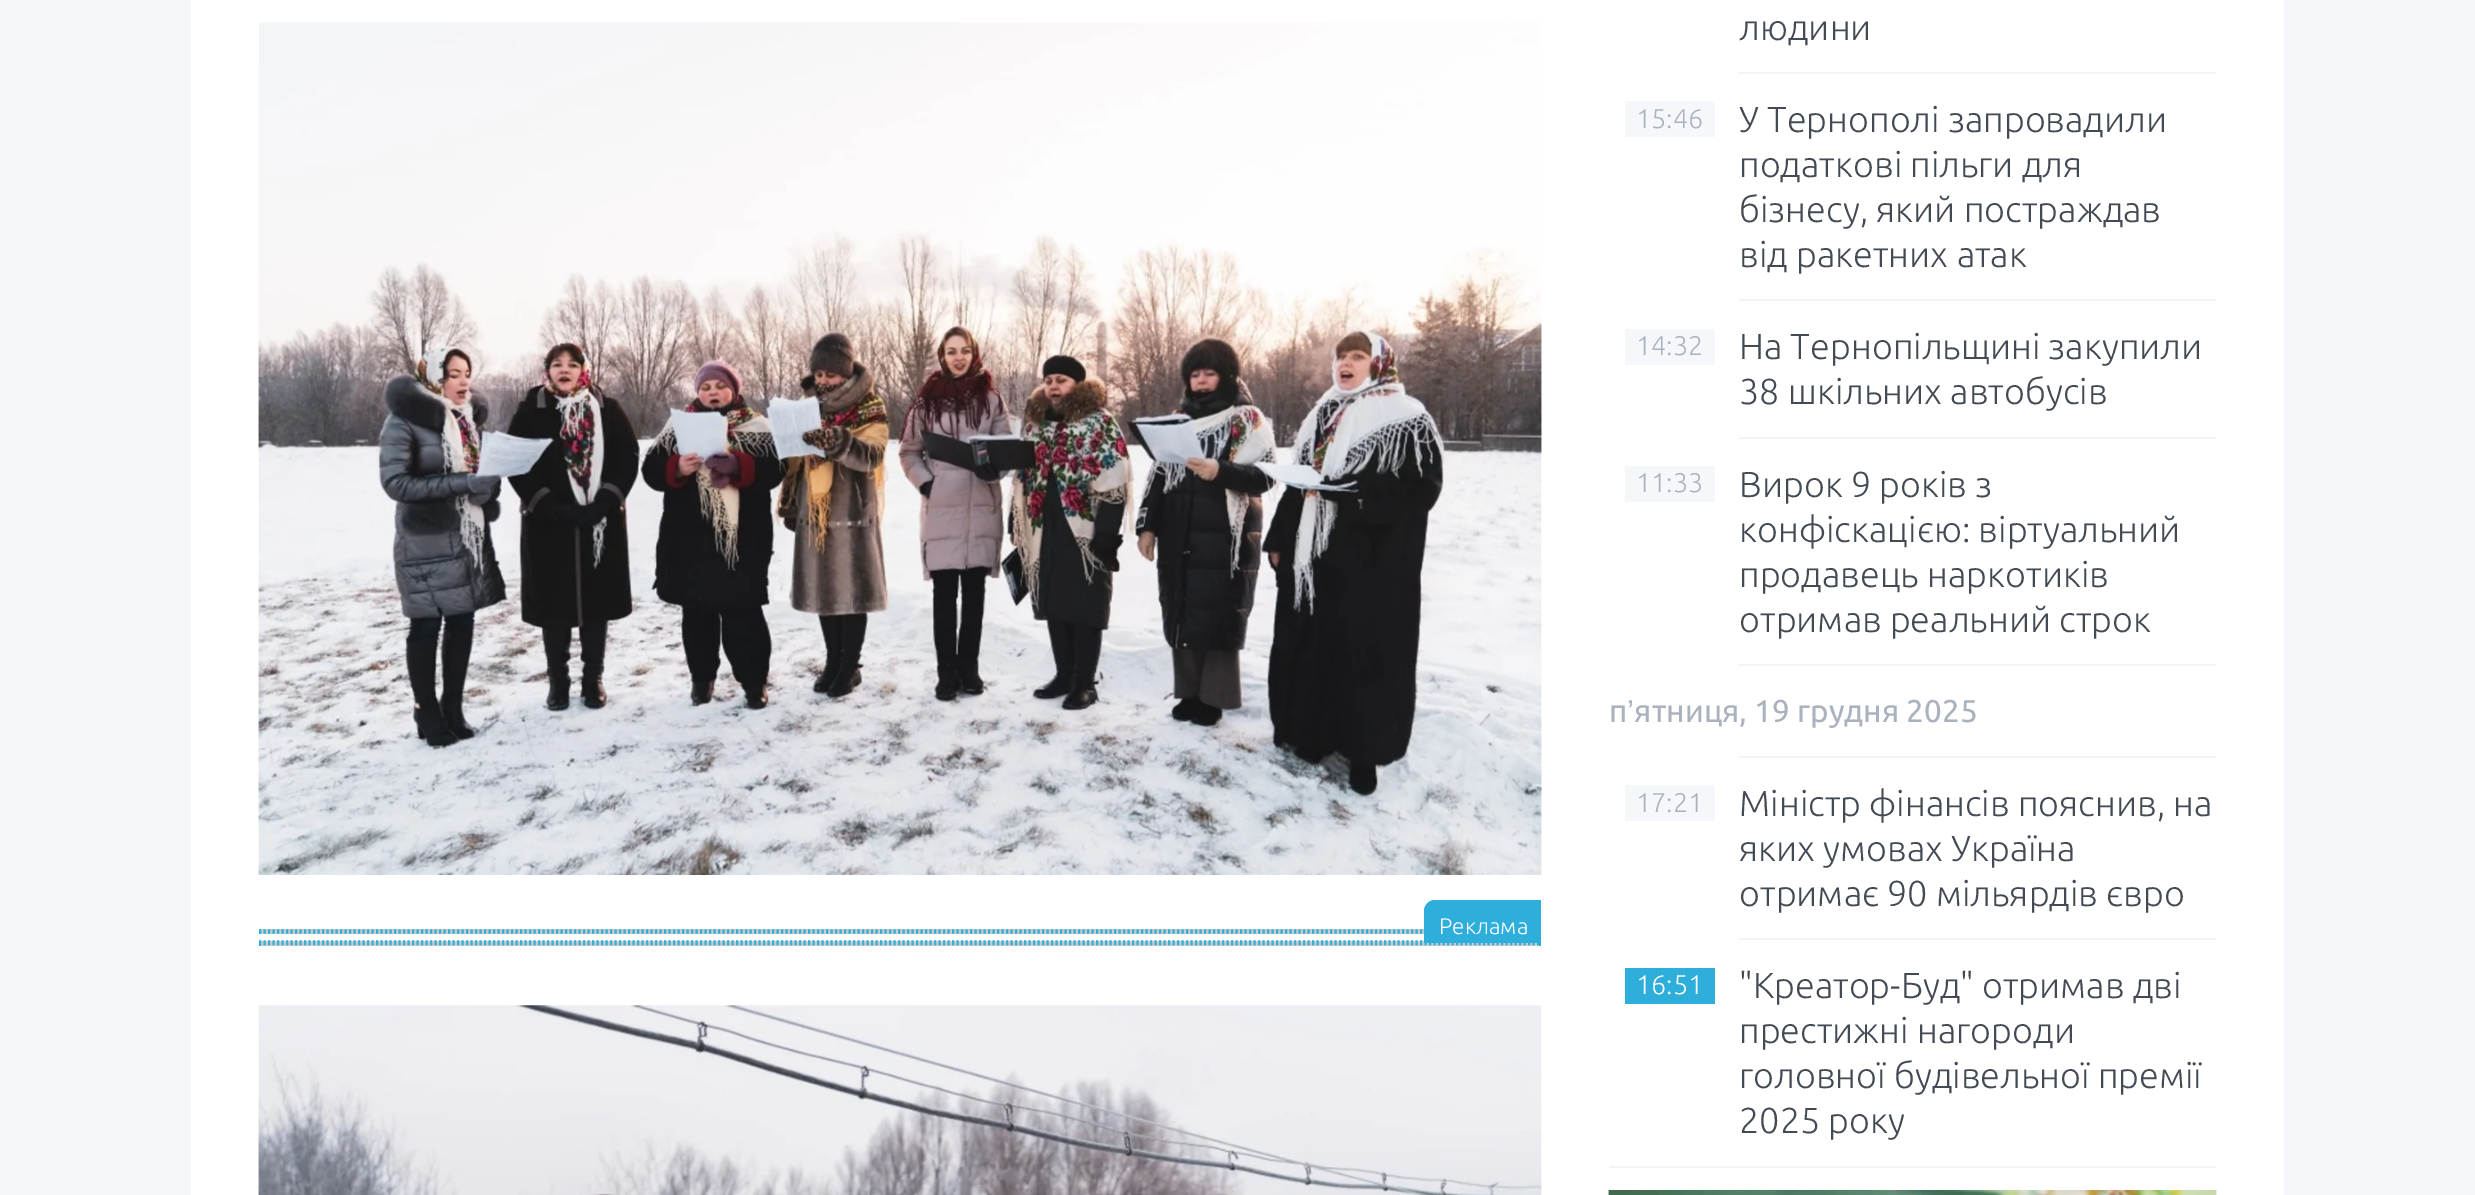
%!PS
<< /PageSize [2475 1195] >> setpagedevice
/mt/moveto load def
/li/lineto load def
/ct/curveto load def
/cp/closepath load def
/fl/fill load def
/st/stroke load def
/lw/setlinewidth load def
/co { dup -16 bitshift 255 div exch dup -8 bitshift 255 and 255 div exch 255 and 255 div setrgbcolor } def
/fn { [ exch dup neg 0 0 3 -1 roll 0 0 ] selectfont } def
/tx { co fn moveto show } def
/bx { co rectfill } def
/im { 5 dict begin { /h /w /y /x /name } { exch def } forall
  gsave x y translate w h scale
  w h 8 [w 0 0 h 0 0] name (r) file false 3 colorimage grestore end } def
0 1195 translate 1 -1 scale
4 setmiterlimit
0 0 2475 1195 16#F6F7FB bx
191 0 2093 1195 16#FFFFFF bx
(media/1.raw) 258 22 1284 853 im
(media/2.raw) 258 323 1284 552 im
259 929 1165 5 16#CCCCCC bx
16#2DAEDB co
2.2 lw
[2.25 2.25] 0 setdash
259 930.5 mt 1541 930.5 li st
259 932.5 mt 1541 932.5 li st
259 929 2 5 16#2DAEDB bx
1435 900 mt 1541 900 li 1541 932 li 1424 932 li 1424 911 li 1424 905 1429 900 1435 900 ct cp fl
259 941 1282 5 16#CCCCCC bx
16#2DAEDB co
259 941.5 mt 1541 941.5 li st
1539 941 2 5 16#2DAEDB bx
259 944 mt 1541 944 li st
259 941 2 5 16#2DAEDB bx
1435 911 mt 1541 911 li 1541 943 li 1424 943 li 1424 922 li 1424 916 1429 911 1435 911 ct cp fl
(media/3.raw) 258 1005 1284 190 im
(media/4.raw) 258 1005 1284 190 im
1625 101 90 36 16#F6F7FB bx
1739 72 477 2 16#F2F4F6 bx
1625 329 90 36 16#F6F7FB bx
1739 299 477 2 16#F2F4F6 bx
1625 466 90 36 16#F6F7FB bx
1739 437 477 2 16#F2F4F6 bx
1739 664 477 2 16#F2F4F6 bx
1625 785 90 36 16#F6F7FB bx
1739 756 477 2 16#F2F4F6 bx
1625 968 90 36 16#2DAEDB bx
1739 938 477 2 16#F2F4F6 bx
1609 1166 607 2 16#F2F4F6 bx
(media/5.raw) 1608 1190 609 5 im
(media/6.raw) 1608 1190 609 5 im
(Реклама) 1439 934 /Ubuntu-Light 22.5 16#FFFFFF tx
(людини) 1739 40 /Ubuntu-Light 36 16#434A54 tx
(15:46) 1636 128 /Ubuntu-Light 27 16#AAB2BD tx
(У Тернополі запровадили) 1739 132 /Ubuntu-Light 36 16#434A54 tx
(податкові пільги для) 1739 177 /Ubuntu-Light 36 16#434A54 tx
(бізнесу, який постраждав) 1739 222 /Ubuntu-Light 36 16#434A54 tx
(від ракетних атак) 1739 267 /Ubuntu-Light 36 16#434A54 tx
(14:32) 1636 355 /Ubuntu-Light 27 16#AAB2BD tx
(На Тернопільщині закупили) 1739 359 /Ubuntu-Light 36 16#434A54 tx
(38 шкільних автобусів) 1739 404 /Ubuntu-Light 36 16#434A54 tx
(11:33) 1636 492 /Ubuntu-Light 27 16#AAB2BD tx
(Вирок 9 років з) 1739 497 /Ubuntu-Light 36 16#434A54 tx
(конфіскацією: віртуальний) 1739 542 /Ubuntu-Light 36 16#434A54 tx
(продавець наркотиків) 1739 587 /Ubuntu-Light 36 16#434A54 tx
(отримав реальний строк) 1739 632 /Ubuntu-Light 36 16#434A54 tx
(п ятниця, 19 грудня 2025) 1609 722 /Ubuntu-Regular 31.5 16#AAB2BD tx
(’) 1627 722 /LiberationSans-Regular 31.5 16#AAB2BD tx
(17:21) 1636 812 /Ubuntu-Light 27 16#AAB2BD tx
(Міністр фінансів пояснив, на) 1739 816 /Ubuntu-Light 36 16#434A54 tx
(яких умовах Україна) 1739 861 /Ubuntu-Light 36 16#434A54 tx
(отримає 90 мільярдів євро) 1739 906 /Ubuntu-Light 36 16#434A54 tx
(16:51) 1636 994 /Ubuntu-Light 27 16#FFFFFF tx
("Креатор-Буд" отримав дві) 1739 998 /Ubuntu-Light 36 16#434A54 tx
(престижні нагороди) 1739 1043 /Ubuntu-Light 36 16#434A54 tx
(головної будівельної премії) 1739 1088 /Ubuntu-Light 36 16#434A54 tx
(2025 року) 1739 1133 /Ubuntu-Light 36 16#434A54 tx
showpage
